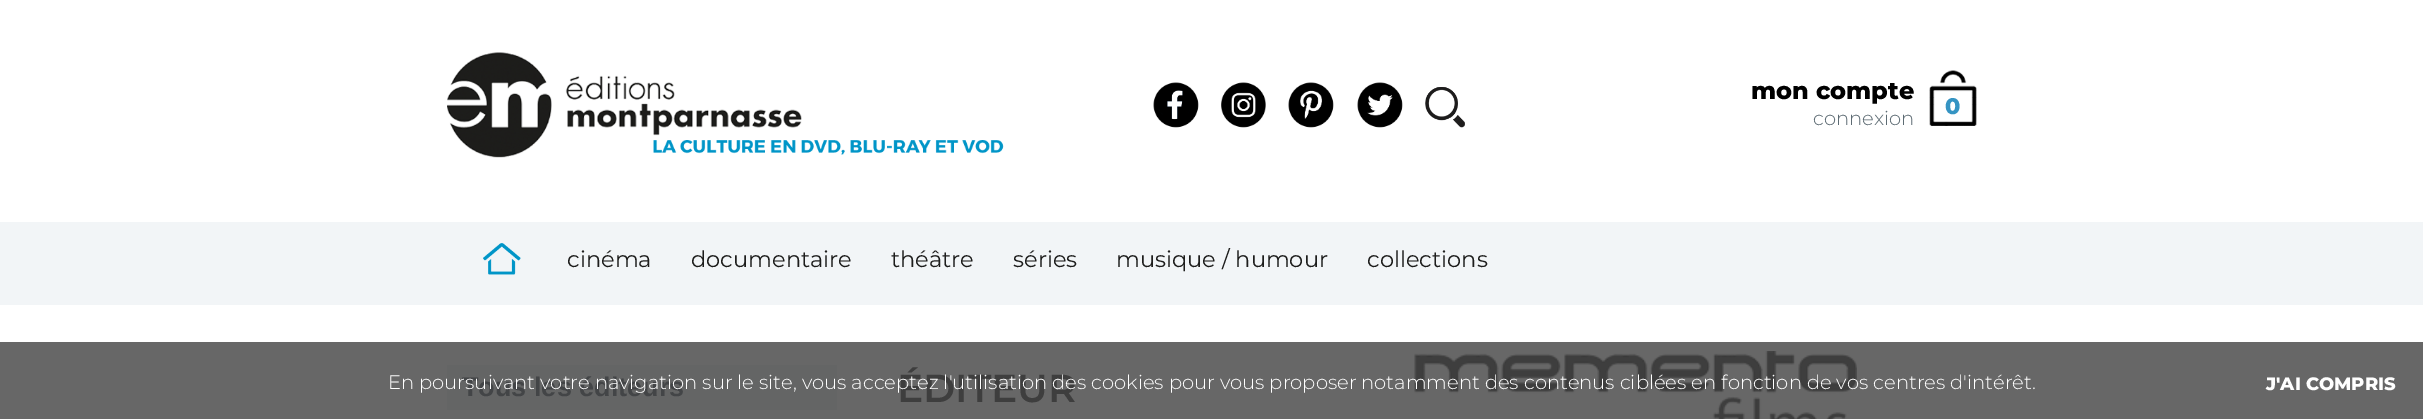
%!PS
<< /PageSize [2423 419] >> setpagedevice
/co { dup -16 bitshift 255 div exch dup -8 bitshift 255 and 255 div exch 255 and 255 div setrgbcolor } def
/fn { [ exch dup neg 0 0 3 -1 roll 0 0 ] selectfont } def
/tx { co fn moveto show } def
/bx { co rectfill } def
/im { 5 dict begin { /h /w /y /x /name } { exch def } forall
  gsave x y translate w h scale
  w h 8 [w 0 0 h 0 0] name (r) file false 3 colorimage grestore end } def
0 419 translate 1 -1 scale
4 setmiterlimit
0 0 2423 419 16#FFFFFF bx
0 342 2423 77 16#676767 bx
(media/1.raw) 447 52 557 106 im
(media/2.raw) 1153 82 46 46 im
(media/3.raw) 1221 82 45 46 im
(media/4.raw) 1288 82 46 46 im
(media/5.raw) 1357 82 46 46 im
(media/6.raw) 1425 87 40 41 im
(media/7.raw) 1929 70 48 56 im
0 222 2423 83 16#F2F5F7 bx
(media/8.raw) 483 243 38 32 im
447 365 390 45 16#646565 bx
(media/9.raw) 1414 351 443 68 im
(mon compte) 1751 99 /Montserrat-ExtraBold 24 16#000000 tx
(connexion) 1813 125 /Montserrat-Light 19.5 16#5D6B73 tx
(0) 1945 114 /Montserrat-ExtraBold 22.5 16#3594C3 tx
(cinéma) 567 267 /Montserrat-Regular 22.5 16#1D1D1C tx
(documentaire) 691 267 /Montserrat-Regular 22.5 16#1D1D1C tx
(théâtre) 891 267 /Montserrat-Regular 22.5 16#1D1D1C tx
(séries) 1013 267 /Montserrat-Regular 22.5 16#1D1D1C tx
(musique / humour) 1116 267 /Montserrat-Regular 22.5 16#1D1D1C tx
(collections) 1367 267 /Montserrat-Regular 22.5 16#1D1D1C tx
(Tous les éditeurs) 462 396 /LiberationSans-Bold 27 16#434547 tx
(ÉDITEUR) 897 402 /Montserrat-SemiBold 39 16#3E3E3E tx
(En poursuivant votre navigation sur le site, vous acceptez l'utilisation des cookies pour vous proposer notamment des contenus ciblées en fonction de vos centres d'intérêt.) 388 389 /Montserrat-Light 19.5 16#FFFFFF tx
(J'AI COMPRIS) 2266 390 /Montserrat-ExtraBold 18 16#FFFFFF tx
showpage
